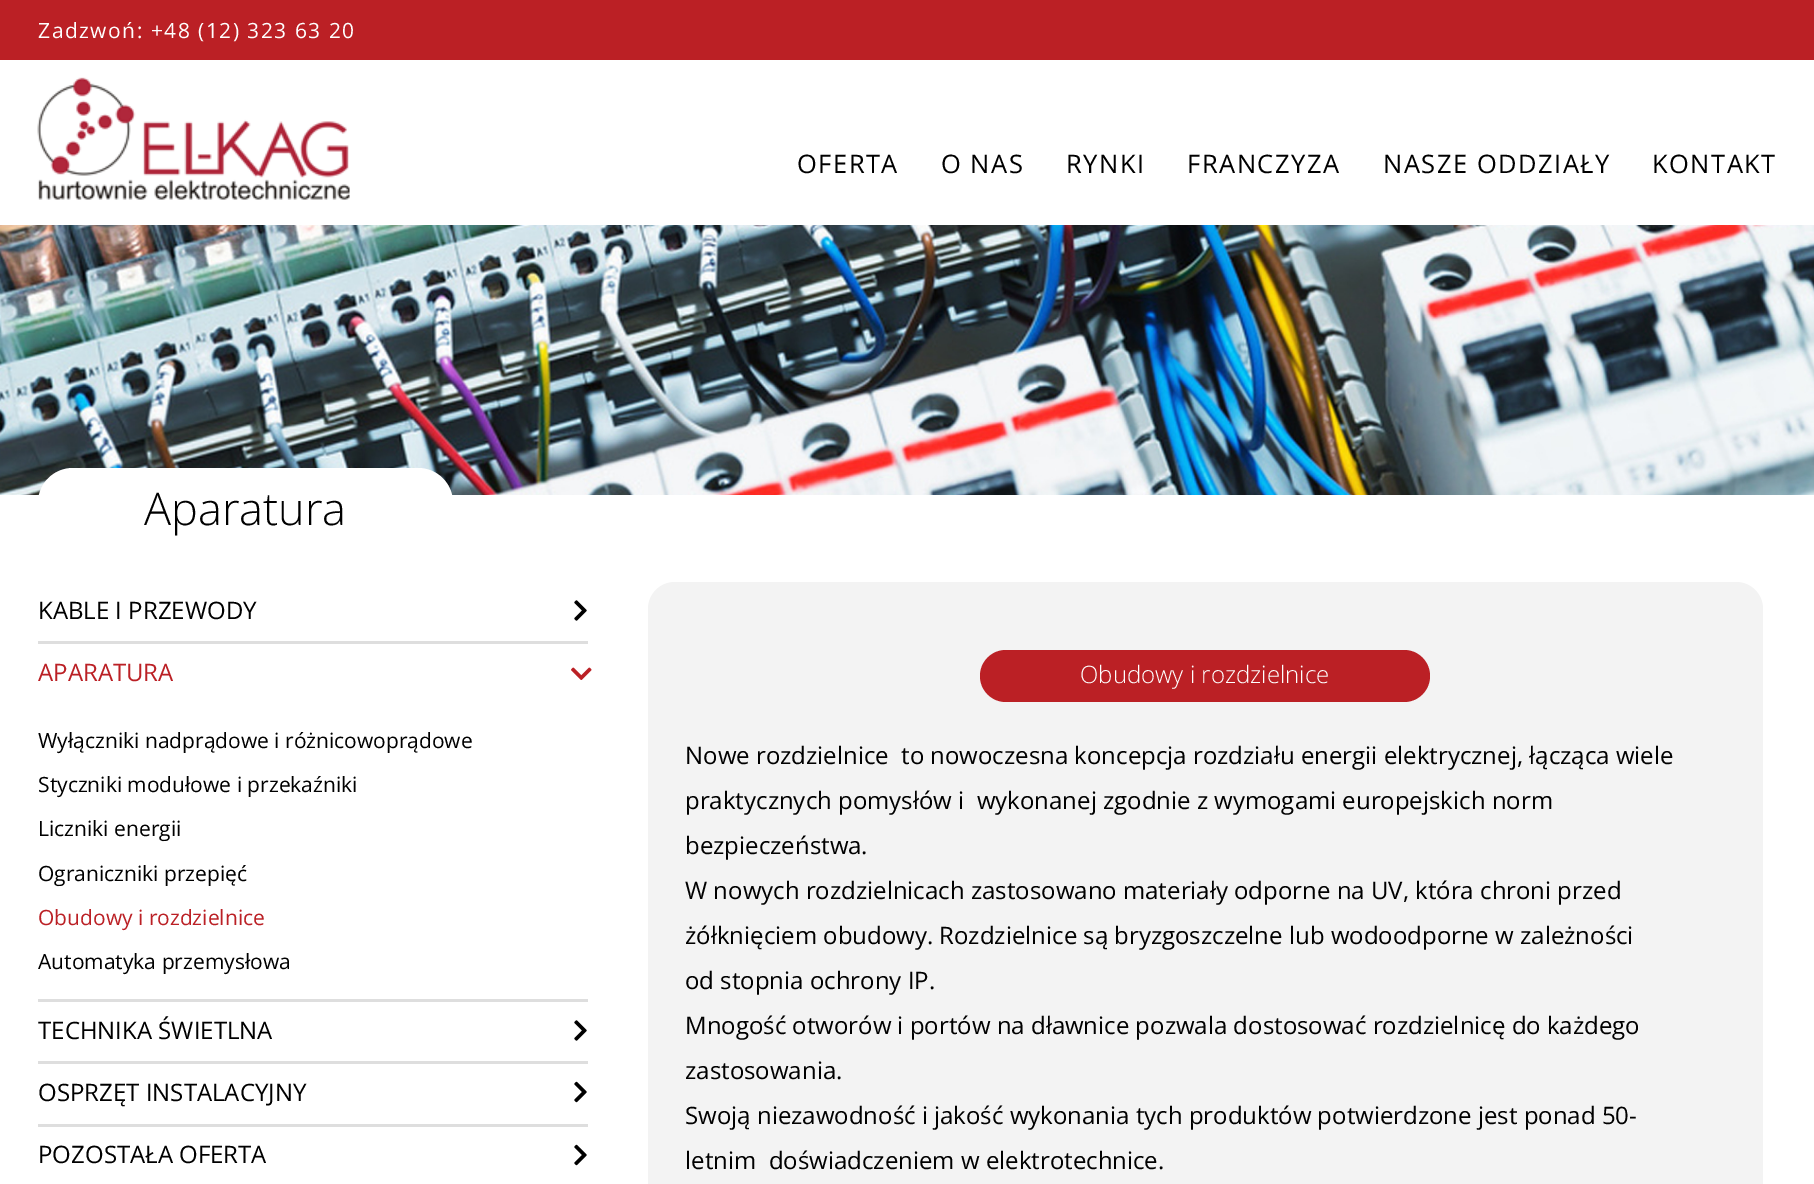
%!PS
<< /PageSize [1814 1184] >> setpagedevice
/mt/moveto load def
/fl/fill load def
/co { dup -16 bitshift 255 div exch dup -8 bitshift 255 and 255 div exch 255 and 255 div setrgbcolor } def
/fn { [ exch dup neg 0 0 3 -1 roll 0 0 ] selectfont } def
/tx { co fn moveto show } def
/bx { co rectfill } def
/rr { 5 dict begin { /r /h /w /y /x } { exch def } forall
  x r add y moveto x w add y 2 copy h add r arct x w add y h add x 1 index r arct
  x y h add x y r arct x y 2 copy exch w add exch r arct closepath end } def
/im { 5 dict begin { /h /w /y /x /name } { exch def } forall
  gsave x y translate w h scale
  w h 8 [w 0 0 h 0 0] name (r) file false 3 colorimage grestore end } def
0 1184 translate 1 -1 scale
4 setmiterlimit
0 0 1814 1184 16#FFFFFF bx
0 0 1814 60 16#BB2025 bx
(media/1.raw) 37 77 313 123 im
(media/2.raw) 0 225 1814 270 im
16#FFFFFF co
38 468 415 81 35 rr fl
38 641 550 3 16#DEDEDE bx
(media/3.raw) 574 600 13 21 im
38 999 550 3 16#DEDEDE bx
(media/4.raw) 571 667 21 13 im
38 1061 550 3 16#DEDEDE bx
(media/3.raw) 574 1020 13 21 im
38 1124 550 3 16#DEDEDE bx
(media/5.raw) 574 1081 13 22 im
(media/5.raw) 574 1144 13 22 im
16#F3F3F3 co
648 582 1115 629 27 rr fl
16#BB2025 co
980 650 450 52 26 rr fl
/OpenSans-Regular 21 fn
16#FFFFFF co
38 38 mt 1.5 0 (Zadzwoń: +48 \(12\) 323 63 20) ashow
/OpenSans-Regular 25.5 fn
16#000000 co
797 173 mt 1.5 0 (OFERTA) ashow
941 173 mt 1.5 0 (O NAS) ashow
1066 173 mt 1.5 0 (RYNKI) ashow
1187 173 mt 1.5 0 (FRANCZYZA) ashow
1383 173 mt 1.5 0 (NASZE ODDZIAŁY) ashow
1652 173 mt 1.5 0 (KONTAKT) ashow
(Aparatura) 144 525 /OpenSans-Light 45 16#000000 tx
(KABLE I PRZEWODY) 38 619 /OpenSans-Regular 24 16#000000 tx
(APARATURA) 38 681 /OpenSans-Regular 24 16#BB2025 tx
(Wyłączniki nadprądowe i różnicowoprądowe) 38 748 /OpenSans-Regular 21 16#000000 tx
(Styczniki modułowe i przekaźniki) 38 792 /OpenSans-Regular 21 16#000000 tx
(Liczniki energii) 38 836 /OpenSans-Regular 21 16#000000 tx
(Ograniczniki przepięć) 38 881 /OpenSans-Regular 21 16#000000 tx
(Obudowy i rozdzielnice) 38 925 /OpenSans-Regular 21 16#BB2025 tx
(Automatyka przemysłowa) 38 969 /OpenSans-Regular 21 16#000000 tx
(TECHNIKA ŚWIETLNA) 38 1039 /OpenSans-Regular 24 16#000000 tx
(OSPRZĘT INSTALACYJNY) 38 1101 /OpenSans-Regular 24 16#000000 tx
(POZOSTAŁA OFERTA) 38 1163 /OpenSans-Regular 24 16#000000 tx
(Obudowy i rozdzielnice) 1080 683 /OpenSans-Light 24 16#FFFFFF tx
(Nowe rozdzielnice  to nowoczesna koncepcja rozdziału energii elektrycznej, łącząca wiele) 685 764 /OpenSans-Regular 24 16#000000 tx
(praktycznych pomysłów i  wykonanej zgodnie z wymogami europejskich norm) 685 809 /OpenSans-Regular 24 16#000000 tx
(bezpieczeństwa.) 685 854 /OpenSans-Regular 24 16#000000 tx
(W nowych rozdzielnicach zastosowano materiały odporne na UV, która chroni przed) 685 899 /OpenSans-Regular 24 16#000000 tx
(żółknięciem obudowy. Rozdzielnice są bryzgoszczelne lub wodoodporne w zależności) 685 944 /OpenSans-Regular 24 16#000000 tx
(od stopnia ochrony IP.) 685 989 /OpenSans-Regular 24 16#000000 tx
(Mnogość otworów i portów na dławnice pozwala dostosować rozdzielnicę do każdego) 685 1034 /OpenSans-Regular 24 16#000000 tx
(zastosowania.) 685 1079 /OpenSans-Regular 24 16#000000 tx
(Swoją niezawodność i jakość wykonania tych produktów potwierdzone jest ponad 50-) 685 1124 /OpenSans-Regular 24 16#000000 tx
(letnim  doświadczeniem w elektrotechnice.) 685 1169 /OpenSans-Regular 24 16#000000 tx
showpage
